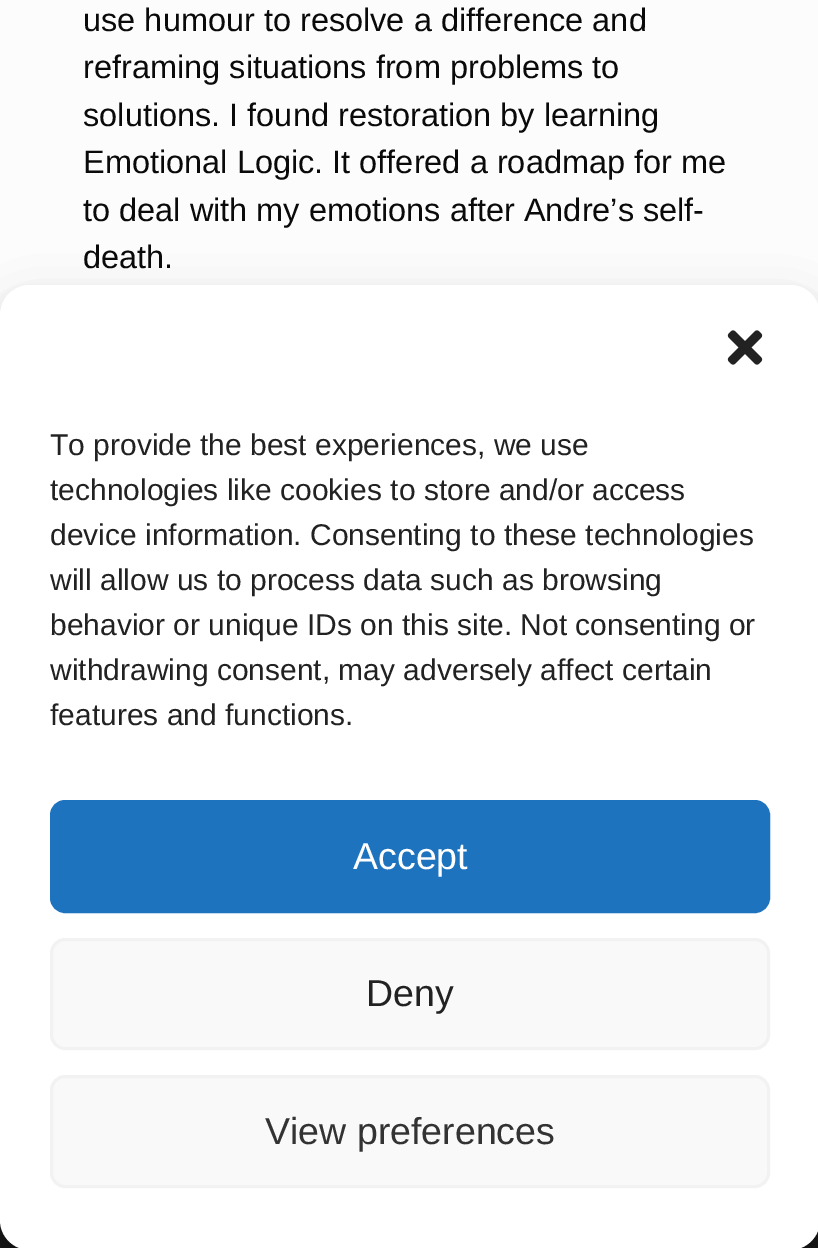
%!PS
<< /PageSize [818 1248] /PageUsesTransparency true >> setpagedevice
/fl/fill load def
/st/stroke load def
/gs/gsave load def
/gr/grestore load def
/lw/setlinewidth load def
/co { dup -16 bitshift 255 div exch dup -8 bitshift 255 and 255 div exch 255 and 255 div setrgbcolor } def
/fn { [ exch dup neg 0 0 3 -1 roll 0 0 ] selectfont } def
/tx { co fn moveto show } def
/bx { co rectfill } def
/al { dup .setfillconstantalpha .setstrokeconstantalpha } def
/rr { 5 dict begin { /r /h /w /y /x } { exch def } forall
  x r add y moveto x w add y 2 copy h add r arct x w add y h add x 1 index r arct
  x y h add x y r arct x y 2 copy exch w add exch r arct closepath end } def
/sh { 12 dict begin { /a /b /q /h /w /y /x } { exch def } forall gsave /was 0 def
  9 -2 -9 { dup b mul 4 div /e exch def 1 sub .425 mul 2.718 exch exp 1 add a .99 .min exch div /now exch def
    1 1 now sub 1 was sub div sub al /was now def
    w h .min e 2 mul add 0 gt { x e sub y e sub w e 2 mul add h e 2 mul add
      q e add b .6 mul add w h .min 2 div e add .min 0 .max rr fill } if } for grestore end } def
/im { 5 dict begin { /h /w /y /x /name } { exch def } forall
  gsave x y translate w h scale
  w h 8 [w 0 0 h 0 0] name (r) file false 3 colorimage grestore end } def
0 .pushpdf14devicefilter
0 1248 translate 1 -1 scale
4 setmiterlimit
0 0 818 1248 16#FCFCFC bx
0 1220 818 28 16#191919 bx
16#000000 co
0 300 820 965 30 7.5 .23 sh
0 310 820 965 30 25 .19 sh
16#FFFFFF co
0 285 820 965 30 rr fl
(media/1.raw) 727 330 36 35 im
16#1E73BE co
51.5 801.5 717 110 13.5 rr gs fl gr
3 lw
st
16#F9F9F9 co
51.5 939.5 717 109 13.5 rr gs fl gr
16#F2F2F2 co
st
16#F9F9F9 co
51.5 1076.5 717 110 13.5 rr gs fl gr
16#F2F2F2 co
st
(use humour to resolve a difference and) 83 31 /LiberationSans-Regular 32.5 16#0A0A0A tx
(reframing situations from problems to) 83 78 /LiberationSans-Regular 32.5 16#0A0A0A tx
(solutions. I found restoration by learning) 83 126 /LiberationSans-Regular 32.5 16#0A0A0A tx
(Emotional Logic. It offered a roadmap for me) 83 173 /LiberationSans-Regular 32.5 16#0A0A0A tx
(to deal with my emotions after Andre’s self-) 83 221 /LiberationSans-Regular 32.5 16#0A0A0A tx
(death.) 83 268 /LiberationSans-Regular 32.5 16#0A0A0A tx
(To provide the best experiences, we use) 50 455 /LiberationSans-Regular 30 16#222222 tx
(technologies like cookies to store and/or access) 50 500 /LiberationSans-Regular 30 16#222222 tx
(device information. Consenting to these technologies) 50 545 /LiberationSans-Regular 30 16#222222 tx
(will allow us to process data such as browsing) 50 590 /LiberationSans-Regular 30 16#222222 tx
(behavior or unique IDs on this site. Not consenting or) 50 635 /LiberationSans-Regular 30 16#222222 tx
(withdrawing consent, may adversely affect certain) 50 680 /LiberationSans-Regular 30 16#222222 tx
(features and functions.) 50 725 /LiberationSans-Regular 30 16#222222 tx
(Accept) 353 869 /LiberationSans-Regular 37.5 16#FFFFFF tx
(Deny) 366 1006 /LiberationSans-Regular 37.5 16#222222 tx
(View preferences) 265 1144 /LiberationSans-Regular 37.5 16#333333 tx
.poppdf14devicefilter showpage
